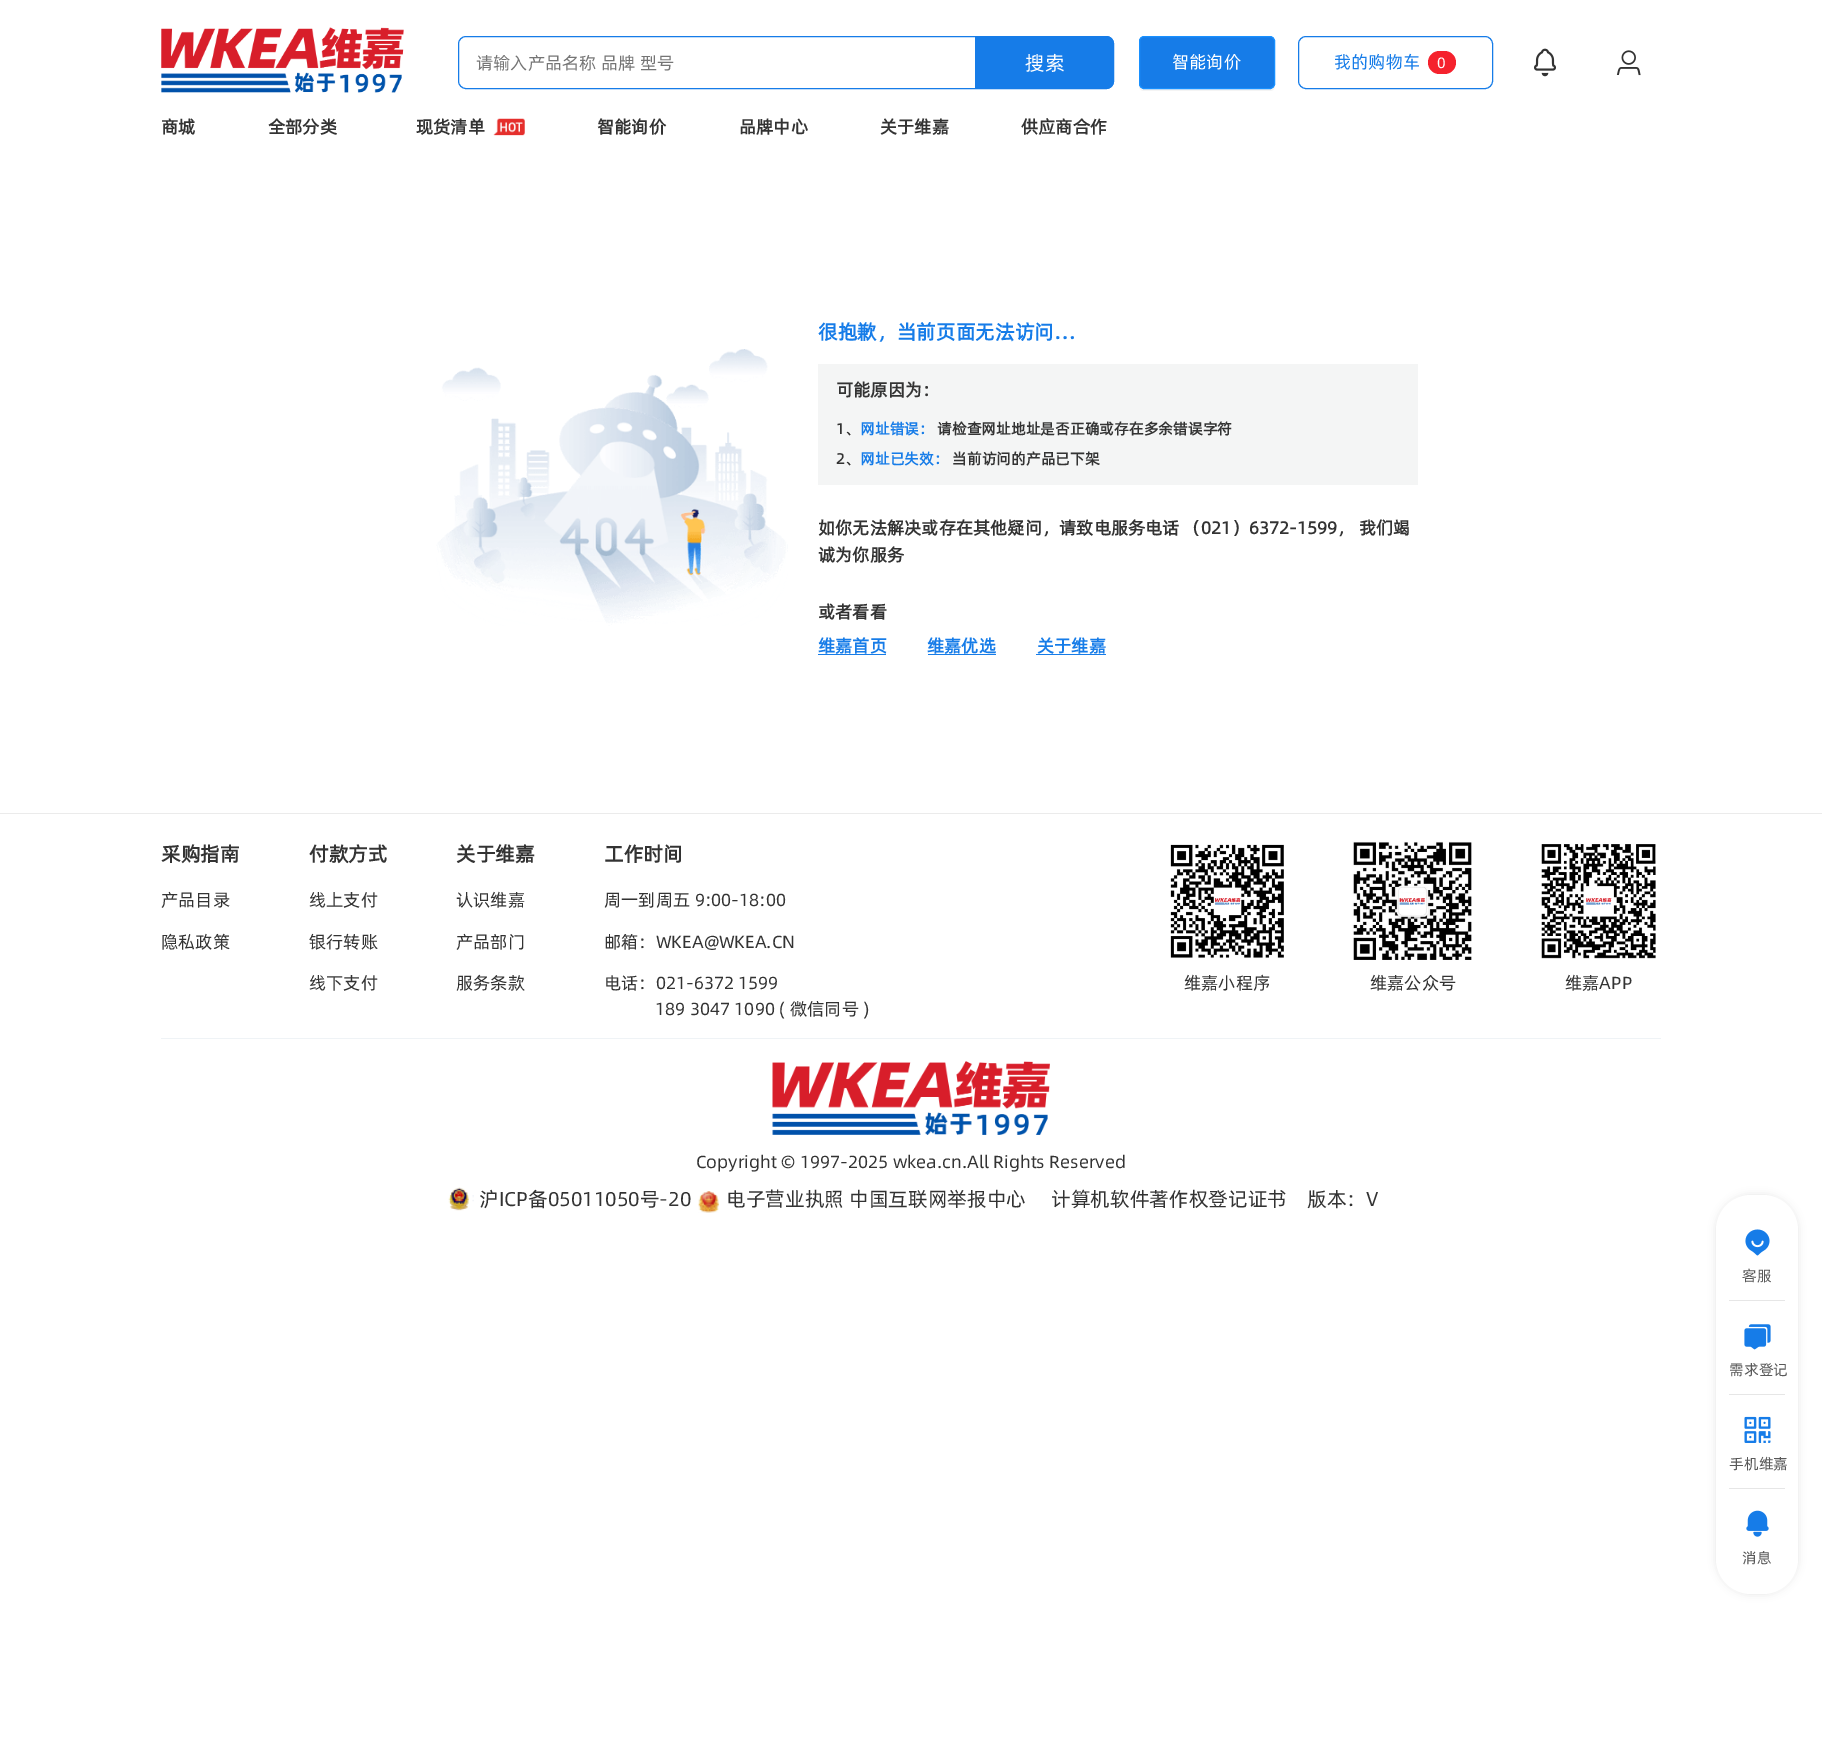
%!PS
<< /PageSize [1822 1756] /PageUsesTransparency true >> setpagedevice
/mt/moveto load def
/li/lineto load def
/ct/curveto load def
/cp/closepath load def
/fl/fill load def
/st/stroke load def
/gs/gsave load def
/gr/grestore load def
/co { dup -16 bitshift 255 div exch dup -8 bitshift 255 and 255 div exch 255 and 255 div setrgbcolor } def
/fn { [ exch dup neg 0 0 3 -1 roll 0 0 ] selectfont } def
/tx { co fn moveto show } def
/bx { co rectfill } def
/al { dup .setfillconstantalpha .setstrokeconstantalpha } def
/rr { 5 dict begin { /r /h /w /y /x } { exch def } forall
  x r add y moveto x w add y 2 copy h add r arct x w add y h add x 1 index r arct
  x y h add x y r arct x y 2 copy exch w add exch r arct closepath end } def
/sh { 12 dict begin { /a /b /q /h /w /y /x } { exch def } forall gsave /was 0 def
  9 -2 -9 { dup b mul 4 div /e exch def 1 sub .425 mul 2.718 exch exp 1 add a .99 .min exch div /now exch def
    1 1 now sub 1 was sub div sub al /was now def
    w h .min e 2 mul add 0 gt { x e sub y e sub w e 2 mul add h e 2 mul add
      q e add b .6 mul add w h .min 2 div e add .min 0 .max rr fill } if } for grestore end } def
/im { 5 dict begin { /h /w /y /x /name } { exch def } forall
  gsave x y translate w h scale
  w h 8 [w 0 0 h 0 0] name (r) file false 3 colorimage grestore end } def
0 .pushpdf14devicefilter
0 1756 translate 1 -1 scale
4 setmiterlimit
0 0 1822 1756 16#FFFFFF bx
(media/1.raw) 161 27 243 66 im
16#167CE8 co
458.5 36.5 655 52 7.5 rr st
975 36 mt 1106 36 li 1110.5 36 1114 39.5 1114 44 ct 1114 81 li 1114 85.5 1110.5 89 1106 89 ct 975 89 li cp fl
16#F4F4F4 co
1139 85 mt 1139 86 li 1139 89 1141 91 1144 91 ct 1270 91 li 1273 91 1275 89 1275 86 ct 1275 84 li 1275 87 1273 89 1270 89 ct 1144 89 li 1142 89 1140 87 1139 85 ct cp fl
16#167CE8 co
1139.5 36.5 135 52 4.5 rr gs fl gr
16#1890FF co
st
16#167CE8 co
1298.5 36.5 194 52 7.5 rr st
16#F5222D co
1428 51 28 23 11.5 rr fl
(media/2.raw) 1534 48 22 29 im
(media/3.raw) 1616 50 25 26 im
(media/4.raw) 493 118 32 18 im
16#000000 co
1716 1195 82 399 35 4 .1 sh
16#FFFFFF co
1716 1195 82 399 35 rr fl
1729 1300 56 1 16#E6E6E6 bx
(media/5.raw) 1745 1229 25 27 im
1729 1394 56 1 16#E6E6E6 bx
(media/6.raw) 1744 1324 27 26 im
1729 1488 56 1 16#E6E6E6 bx
(media/7.raw) 1744 1416 27 27 im
(media/8.raw) 1746 1510 23 27 im
(media/9.raw) 436 349 352 277 im
818 364 600 121 16#F4F5F5 bx
818 654 68 1 16#167CE8 bx
928 654 68 1 16#167CE8 bx
1036 654 70 1 16#167CE8 bx
0 813 1822 1 16#EBEBEB bx
161 1038 1500 1 16#EFF3F6 bx
(media/10.raw) 1170 844 114 114 im
(media/11.raw) 1352 841 120 119 im
(media/12.raw) 1541 844 115 115 im
(media/13.raw) 772 1061 278 74 im
(media/14.raw) 448 1187 26 24 im
(media/15.raw) 698 1191 22 22 im
(请输入产品名称 品牌 型号) 476 69 /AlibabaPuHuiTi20-Regular 17.5 16#757575 tx
(搜索) 1025 70 /AlibabaPuHuiTi20-Regular 20 16#FFFFFF tx
(智能询价) 1172 68 /AlibabaPuHuiTi20-Regular 17.5 16#FFFFFF tx
(我的购物车) 1334 68 /AlibabaPuHuiTi20-Regular 17.5 16#167CE8 tx
(0) 1437 68 /AlibabaPuHuiTi20-Regular 15 16#FFFFFF tx
(商城) 161 133 /AlibabaPuHuiTi20-Bold 17.5 16#333333 tx
(全部分类) 268 133 /AlibabaPuHuiTi20-Bold 17.5 16#333333 tx
(现货清单) 416 133 /AlibabaPuHuiTi20-Bold 17.5 16#333333 tx
(智能询价) 597 133 /AlibabaPuHuiTi20-Bold 17.5 16#333333 tx
(品牌中心) 739 133 /AlibabaPuHuiTi20-Bold 17.5 16#333333 tx
(关于维嘉) 880 133 /AlibabaPuHuiTi20-Bold 17.5 16#333333 tx
(供应商合作) 1021 133 /AlibabaPuHuiTi20-Bold 17.5 16#333333 tx
(客服) 1742 1281 /AlibabaPuHuiTi20-Regular 15 16#595959 tx
(需求登记) 1729 1375 /AlibabaPuHuiTi20-Regular 15 16#595959 tx
(手机维嘉) 1729 1469 /AlibabaPuHuiTi20-Regular 15 16#595959 tx
(消息) 1742 1563 /AlibabaPuHuiTi20-Regular 15 16#595959 tx
(很抱歉，当前页面无法访问…) 818 339 /AlibabaPuHuiTi20-Bold 20 16#167CE8 tx
(可能原因为：) 836 396 /AlibabaPuHuiTi20-Bold 17.5 16#333333 tx
(1、) 836 434 /AlibabaPuHuiTi20-Bold 15 16#333333 tx
(网址错误：) 860 434 /AlibabaPuHuiTi20-Bold 15 16#167CE8 tx
(请检查网址地址是否正确或存在多余错误字符) 937 434 /AlibabaPuHuiTi20-Bold 15 16#333333 tx
(2、) 836 464 /AlibabaPuHuiTi20-Bold 15 16#333333 tx
(网址已失效：) 860 464 /AlibabaPuHuiTi20-Bold 15 16#167CE8 tx
(当前访问的产品已下架) 952 464 /AlibabaPuHuiTi20-Bold 15 16#333333 tx
(如你无法解决或存在其他疑问，请致电服务电话 （021）6372-1599， 我们竭) 818 534 /AlibabaPuHuiTi20-Bold 17.5 16#333333 tx
(诚为你服务) 818 561 /AlibabaPuHuiTi20-Bold 17.5 16#333333 tx
(或者看看) 818 618 /AlibabaPuHuiTi20-Bold 17.5 16#333333 tx
(维嘉首页) 818 652 /AlibabaPuHuiTi20-Bold 17.5 16#167CE8 tx
(维嘉优选) 927 652 /AlibabaPuHuiTi20-Bold 17.5 16#167CE8 tx
(关于维嘉) 1037 652 /AlibabaPuHuiTi20-Bold 17.5 16#167CE8 tx
(采购指南) 161 861 /AlibabaPuHuiTi20-Bold 20 16#333333 tx
(产品目录) 161 906 /AlibabaPuHuiTi20-Regular 17.5 16#333333 tx
(隐私政策) 161 948 /AlibabaPuHuiTi20-Regular 17.5 16#333333 tx
(付款方式) 309 861 /AlibabaPuHuiTi20-Bold 20 16#333333 tx
(线上支付) 309 906 /AlibabaPuHuiTi20-Regular 17.5 16#333333 tx
(银行转账) 309 948 /AlibabaPuHuiTi20-Regular 17.5 16#333333 tx
(线下支付) 309 989 /AlibabaPuHuiTi20-Regular 17.5 16#333333 tx
(关于维嘉) 456 861 /AlibabaPuHuiTi20-Bold 20 16#333333 tx
(认识维嘉) 456 906 /AlibabaPuHuiTi20-Regular 17.5 16#333333 tx
(产品部门) 456 948 /AlibabaPuHuiTi20-Regular 17.5 16#333333 tx
(服务条款) 456 989 /AlibabaPuHuiTi20-Regular 17.5 16#333333 tx
(工作时间) 604 861 /AlibabaPuHuiTi20-Bold 20 16#333333 tx
(周一到周五 9:00-18:00) 604 906 /AlibabaPuHuiTi20-Regular 17.5 16#333333 tx
(邮箱：WKEA@WKEA.CN) 604 948 /AlibabaPuHuiTi20-Regular 17.5 16#333333 tx
(电话：021-6372 1599) 604 989 /AlibabaPuHuiTi20-Regular 17.5 16#333333 tx
(189 3047 1090 \( 微信同号 \)) 655 1015 /AlibabaPuHuiTi20-Regular 17.5 16#333333 tx
(维嘉小程序) 1184 989 /AlibabaPuHuiTi20-Regular 17.5 16#333333 tx
(维嘉公众号) 1370 989 /AlibabaPuHuiTi20-Regular 17.5 16#333333 tx
(维嘉APP) 1565 989 /AlibabaPuHuiTi20-Regular 17.5 16#333333 tx
(Copyright © 1997-2025 wkea.cn.All Rights Reserved) 696 1168 /AlibabaPuHuiTi20-Regular 17.5 16#333333 tx
(沪ICP备05011050号-20) 479 1206 /AlibabaPuHuiTi20-Regular 20 16#333333 tx
(电子营业执照) 726 1206 /AlibabaPuHuiTi20-Regular 20 16#333333 tx
(中国互联网举报中心) 849 1206 /AlibabaPuHuiTi20-Regular 20 16#333333 tx
(计算机软件著作权登记证书) 1051 1206 /AlibabaPuHuiTi20-Regular 20 16#333333 tx
(版本：V) 1307 1206 /AlibabaPuHuiTi20-Regular 20 16#333333 tx
.poppdf14devicefilter showpage
